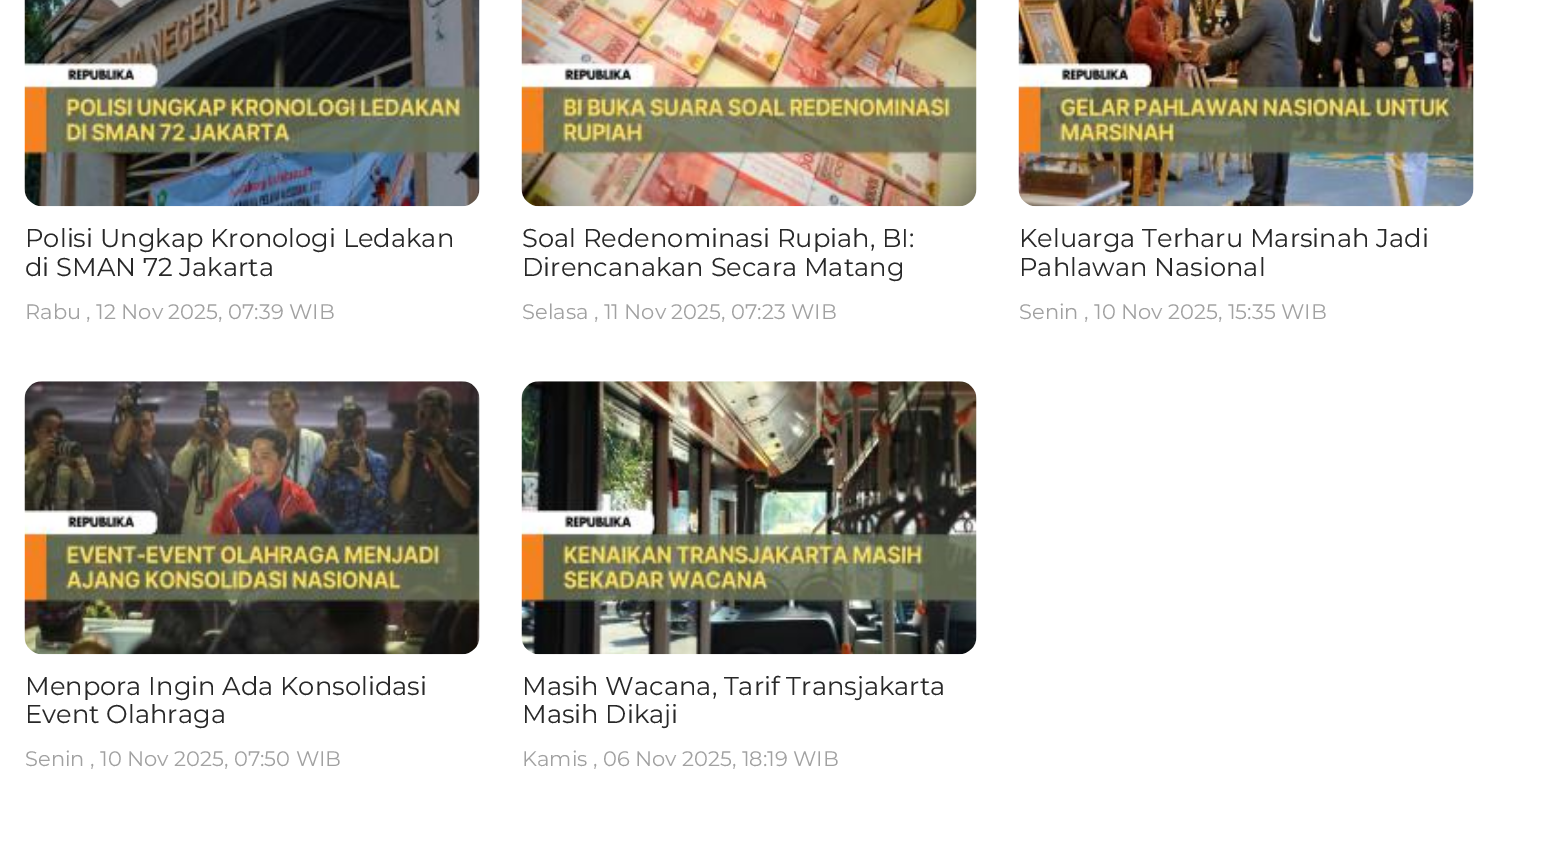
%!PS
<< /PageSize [1561 863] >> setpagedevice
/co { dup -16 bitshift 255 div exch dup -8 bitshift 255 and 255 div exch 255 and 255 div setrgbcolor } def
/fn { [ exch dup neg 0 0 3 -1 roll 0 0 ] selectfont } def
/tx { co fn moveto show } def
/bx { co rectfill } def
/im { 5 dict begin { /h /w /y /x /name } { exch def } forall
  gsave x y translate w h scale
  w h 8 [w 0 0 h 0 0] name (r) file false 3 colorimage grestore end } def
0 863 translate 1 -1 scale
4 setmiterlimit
0 0 1561 863 16#FFFFFF bx
(media/1.raw) 24 0 456 207 im
(media/2.raw) 521 0 456 207 im
(media/3.raw) 1018 0 456 207 im
(media/4.raw) 24 381 456 274 im
(media/5.raw) 521 381 456 274 im
(Polisi Ungkap Kronologi Ledakan) 25 247 /Montserrat-Regular 25.75 16#282828 tx
(di SMAN 72 Jakarta) 25 276 /Montserrat-Regular 25.75 16#282828 tx
(Rabu , 12 Nov 2025, 07:39 WIB) 25 319 /Montserrat-Regular 21 16#A1A1A1 tx
(Soal Redenominasi Rupiah, BI:) 522 247 /Montserrat-Regular 25.75 16#282828 tx
(Direncanakan Secara Matang) 522 276 /Montserrat-Regular 25.75 16#282828 tx
(Selasa , 11 Nov 2025, 07:23 WIB) 522 319 /Montserrat-Regular 21 16#A1A1A1 tx
(Keluarga Terharu Marsinah Jadi) 1019 247 /Montserrat-Regular 25.75 16#282828 tx
(Pahlawan Nasional) 1019 276 /Montserrat-Regular 25.75 16#282828 tx
(Senin , 10 Nov 2025, 15:35 WIB) 1019 319 /Montserrat-Regular 21 16#A1A1A1 tx
(Menpora Ingin Ada Konsolidasi) 25 695 /Montserrat-Regular 25.75 16#282828 tx
(Event Olahraga) 25 723 /Montserrat-Regular 25.75 16#282828 tx
(Senin , 10 Nov 2025, 07:50 WIB) 25 766 /Montserrat-Regular 21 16#A1A1A1 tx
(Masih Wacana, Tarif Transjakarta) 522 695 /Montserrat-Regular 25.75 16#282828 tx
(Masih Dikaji) 522 723 /Montserrat-Regular 25.75 16#282828 tx
(Kamis , 06 Nov 2025, 18:19 WIB) 522 766 /Montserrat-Regular 21 16#A1A1A1 tx
showpage
